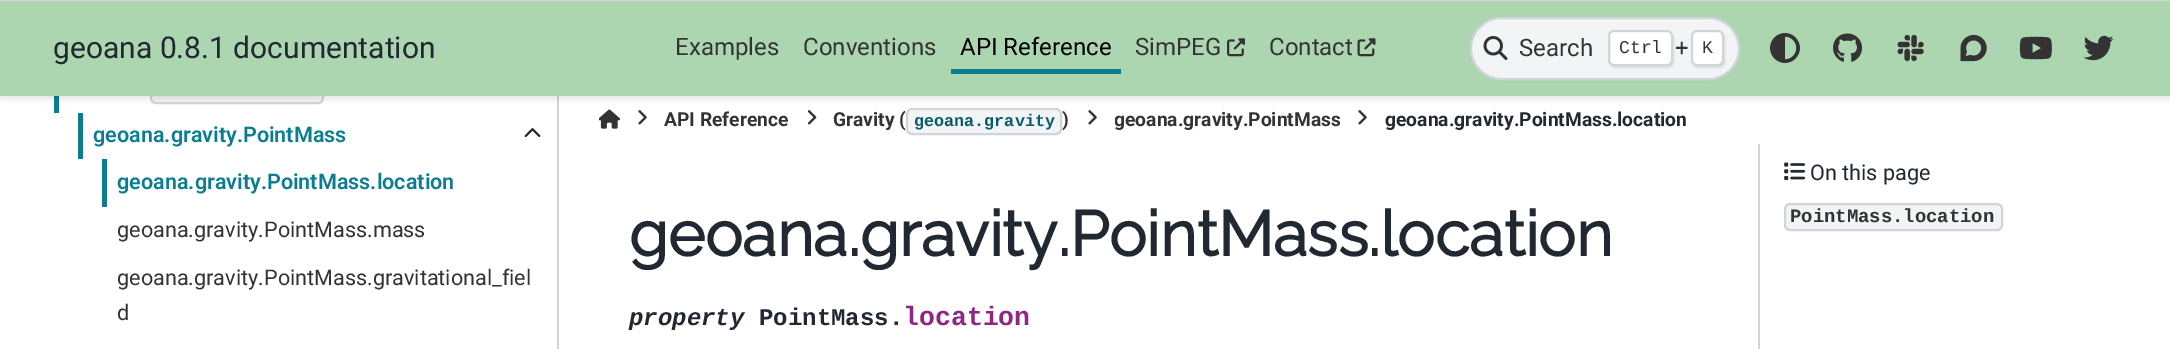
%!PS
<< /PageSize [2170 349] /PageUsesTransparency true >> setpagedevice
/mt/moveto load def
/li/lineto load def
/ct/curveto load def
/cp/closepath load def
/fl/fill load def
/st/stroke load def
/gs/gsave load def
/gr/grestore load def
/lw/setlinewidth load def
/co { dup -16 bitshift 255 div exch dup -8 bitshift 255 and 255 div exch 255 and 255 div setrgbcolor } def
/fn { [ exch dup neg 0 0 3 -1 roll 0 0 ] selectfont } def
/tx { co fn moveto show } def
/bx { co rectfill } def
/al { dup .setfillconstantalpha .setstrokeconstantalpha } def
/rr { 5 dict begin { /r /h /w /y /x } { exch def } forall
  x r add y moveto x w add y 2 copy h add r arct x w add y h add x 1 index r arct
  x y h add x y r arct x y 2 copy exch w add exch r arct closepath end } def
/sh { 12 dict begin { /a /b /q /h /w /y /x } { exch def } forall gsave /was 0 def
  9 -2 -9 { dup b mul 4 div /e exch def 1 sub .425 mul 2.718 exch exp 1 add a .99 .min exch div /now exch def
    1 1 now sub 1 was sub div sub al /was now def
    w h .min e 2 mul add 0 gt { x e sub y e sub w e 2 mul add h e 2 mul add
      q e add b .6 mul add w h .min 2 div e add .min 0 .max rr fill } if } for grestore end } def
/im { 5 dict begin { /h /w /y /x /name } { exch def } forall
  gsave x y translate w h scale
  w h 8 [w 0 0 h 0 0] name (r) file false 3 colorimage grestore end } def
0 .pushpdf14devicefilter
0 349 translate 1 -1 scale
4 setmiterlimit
0 0 2170 349 16#FFFFFF bx
557 96 2 253 16#D1D5DA bx
54 96 5 17 16#0A7D91 bx
16#F3F4F5 co
150 96 mt 324 96 li 324 98 li 324 101.5 321.5 104 318 104 ct 156 104 li 152.5 104 150 101.5 150 98 ct cp fl
16#D1D5DA co
2 lw
151 76 172 27 5 rr st
16#F3F4F5 co
907 109 154 25 5 rr gs fl gr
16#D1D5DA co
st
16#000000 co
0 3 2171 96 0 3 .1 sh
0 0 2170 1 16#D1D5DA bx
0 1 2170 95 16#ACD6AF bx
951 69 170 5 16#0A7D91 bx
(media/1.raw) 1227 38 18 19 im
(media/2.raw) 1357 38 19 19 im
16#F3F4F5 co
1471 18 268 61 30.5 rr gs fl gr
16#D1D5DA co
st
(media/3.raw) 1483 36 25 24 im
16#000000 co
1610 32 64 36 6 1 .1 sh
16#FFFFFF co
1609 31 63 34 5 rr gs fl gr
16#D1D5DA co
st
16#000000 co
1692 32 33 36 6 1 .1 sh
16#FFFFFF co
1692 31 31 34 5 rr gs fl gr
16#D1D5DA co
st
(media/4.raw) 1770 33 30 30 im
(media/5.raw) 1833 33 30 29 im
(media/6.raw) 1897 34 27 28 im
(media/7.raw) 1960 34 27 28 im
(media/8.raw) 2019 36 33 24 im
(media/9.raw) 2083 35 31 26 im
78 113 5 46 16#0A7D91 bx
(media/10.raw) 524 128 17 9 im
102 159 5 48 16#0A7D91 bx
(media/11.raw) 599 109 21 20 im
(media/12.raw) 638 110 9 15 im
(media/13.raw) 807 110 10 15 im
(media/12.raw) 1088 110 9 15 im
(media/12.raw) 1358 110 9 15 im
1758 144 2 205 16#D1D5DA bx
(media/14.raw) 1784 162 22 19 im
16#F3F4F5 co
1785 204 217 26 5 rr gs fl gr
16#D1D5DA co
st
(geoana 0.8.1 documentation) 53 58 /Roboto-Regular 30 16#222832 tx
(Examples) 675 55 /Roboto-Regular 24 16#333333 tx
(Conventions) 803 55 /Roboto-Regular 24 16#333333 tx
(API Reference) 960 55 /Roboto-Regular 24 16#000000 tx
(SimPEG) 1135 55 /Roboto-Regular 24 16#333333 tx
(Contact) 1269 55 /Roboto-Regular 24 16#333333 tx
(Search) 1519 56 /Roboto-Regular 24 16#333333 tx
(Ctrl) 1619 53 /LiberationMono-Regular 18 16#333333 tx
(+) 1675 56 /Roboto-Regular 24 16#333333 tx
(K) 1702 53 /LiberationMono-Regular 18 16#333333 tx
(geoana.gravity.PointMass) 93 142 /Roboto-SemiBold 21.6 16#0A7D91 tx
(geoana.gravity.PointMass.location) 117 189 /Roboto-SemiBold 21.6 16#0A7D91 tx
(geoana.gravity.PointMass.mass) 117 237 /Roboto-Regular 21.6 16#333333 tx
(geoana.gravity.PointMass.gravitational_fiel) 117 285 /Roboto-Regular 21.6 16#333333 tx
(d) 117 320 /Roboto-Regular 21.6 16#333333 tx
(API Reference) 664 126 /Roboto-Bold 19.25 16#333333 tx
(Gravity \() 833 126 /Roboto-Bold 19.25 16#333333 tx
(geoana.gravity) 914 126 /LiberationMono-Bold 16.75 16#085D6C tx
(\)) 1062 126 /Roboto-Bold 19.25 16#333333 tx
gs
1115 104 225 31 rectclip
(geoana.gravity.PointMass) 1114 126 /Roboto-Bold 19.25 16#333333 tx
gr
(geoana.gravity.PointMass.location) 1385 126 /Roboto-Bold 19.25 16#222832 tx
(geoana.gravity.PointMass.location) 629 256 /Raleway-Bold 63 16#222832 tx
(property) 629 325 /LiberationMono-BoldItalic 24 16#222832 tx
(PointMass.) 759 325 /LiberationMono-Bold 24 16#222832 tx
(location) 903 325 /LiberationMono-Bold 26.5 16#912583 tx
(On this page) 1810 180 /Roboto-Regular 21.6 16#222832 tx
(PointMass.location) 1790 222 /LiberationMono-Bold 18.9 16#333333 tx
.poppdf14devicefilter showpage
